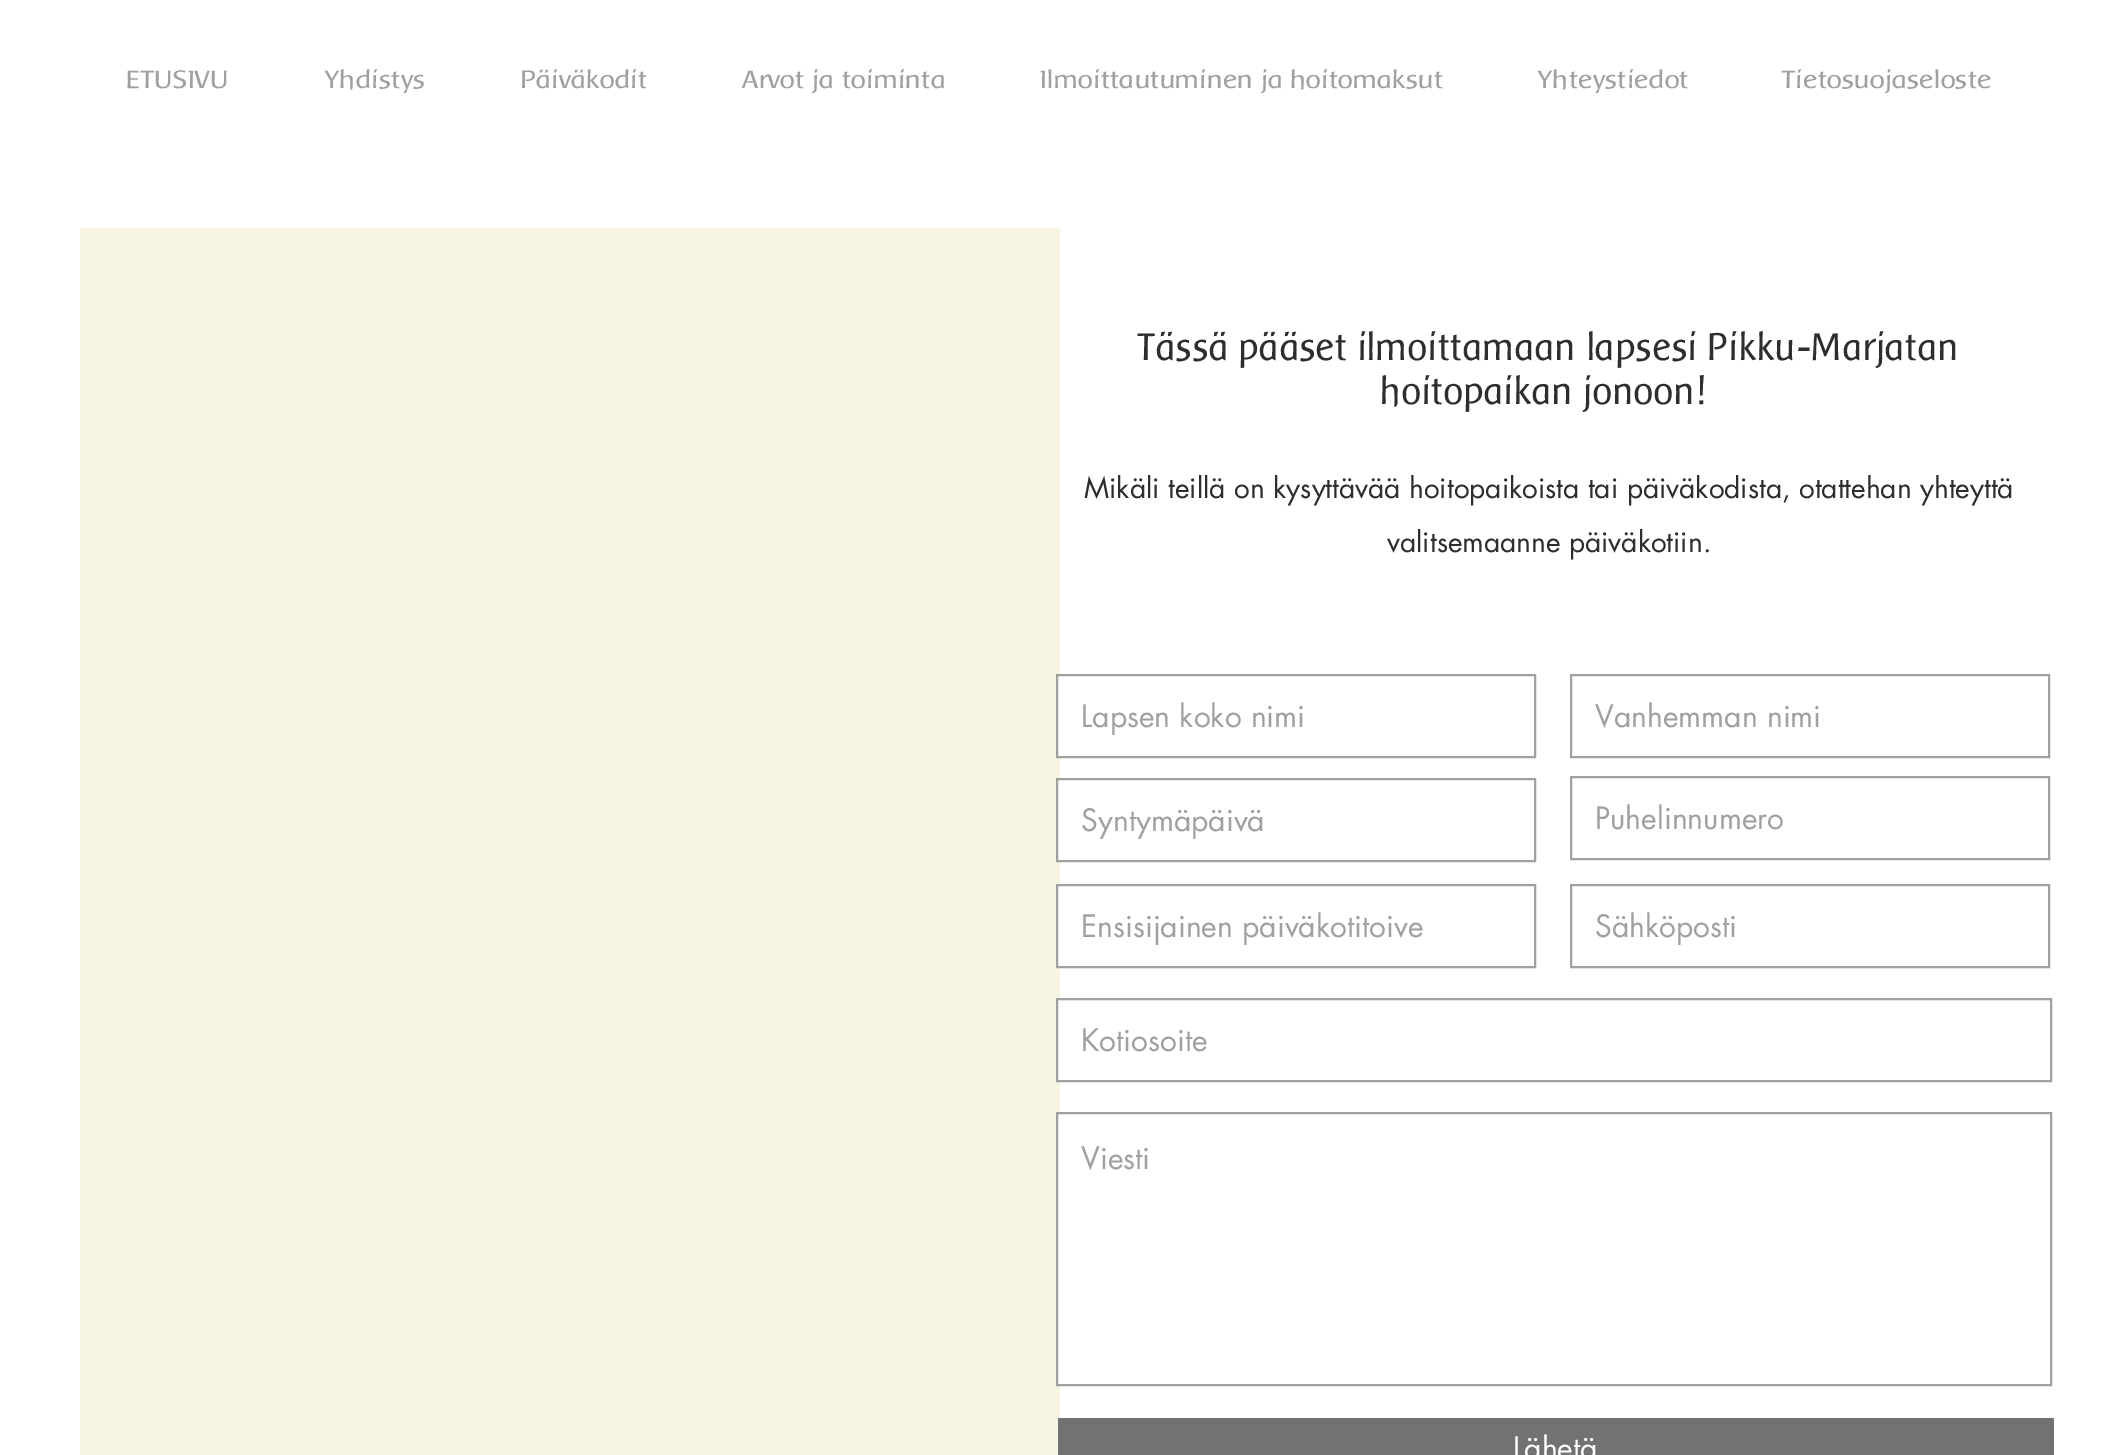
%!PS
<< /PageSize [2118 1455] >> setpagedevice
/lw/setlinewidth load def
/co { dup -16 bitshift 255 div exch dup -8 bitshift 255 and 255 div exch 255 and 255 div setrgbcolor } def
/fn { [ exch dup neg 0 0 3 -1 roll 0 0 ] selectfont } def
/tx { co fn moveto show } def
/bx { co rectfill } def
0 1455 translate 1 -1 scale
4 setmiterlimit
0 0 2118 1455 16#FFFFFF bx
80 228 980 1227 16#F7F5E1 bx
1058 676 2 80 16#FFFFFF bx
16#A0A09F co
2 lw
1057 675 478 82 rectstroke
1571 675 478 82 rectstroke
1058 780 2 80 16#FFFFFF bx
16#A0A09F co
1057 779 478 82 rectstroke
1571 777 478 82 rectstroke
1058 886 2 80 16#FFFFFF bx
16#A0A09F co
1057 885 478 82 rectstroke
1571 885 478 82 rectstroke
1058 1000 2 80 16#FFFFFF bx
16#A0A09F co
1057 999 994 82 rectstroke
1058 1114 2 270 16#FFFFFF bx
16#A0A09F co
1057 1113 994 272 rectstroke
1058 1418 996 37 16#727272 bx
(ETUSIVU) 126 88 /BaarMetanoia-Regular 26 16#A0A09F tx
(Yhdistys) 325 88 /BaarMetanoia-Regular 26 16#A0A09F tx
(Päiväkodit) 520 88 /BaarMetanoia-Regular 26 16#A0A09F tx
(Arvot ja toiminta) 742 88 /BaarMetanoia-Regular 26 16#A0A09F tx
(Ilmoittautuminen ja hoitomaksut) 1040 88 /BaarMetanoia-Regular 26 16#A0A09F tx
(Yhteystiedot) 1538 88 /BaarMetanoia-Regular 26 16#A0A09F tx
(Tietosuojaseloste) 1782 88 /BaarMetanoia-Regular 26 16#A0A09F tx
(Tässä pääset ilmoittamaan lapsesi Pikku-Marjatan) 1138 360 /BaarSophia-Regular 40 16#2F2E2E tx
(hoitopaikan jonoon!) 1380 404 /BaarSophia-Regular 40 16#2F2E2E tx
(Mikäli teillä on kysyttävää hoitopaikoista tai päiväkodista, otattehan yhteyttä) 1084 498 /futura-Regular 28 16#2F2E2E tx
(valitsemaanne päiväkotiin.) 1387 552 /futura-Regular 28 16#2F2E2E tx
(Lapsen koko nimi) 1081 727 /futura-Regular 30 16#A0A09F tx
(Vanhemman nimi) 1595 727 /futura-Regular 30 16#A0A09F tx
(Syntymäpäivä) 1081 831 /futura-Regular 30 16#A0A09F tx
(Puhelinnumero) 1595 829 /futura-Regular 30 16#A0A09F tx
(Ensisijainen päiväkotitoive) 1081 937 /futura-Regular 30 16#A0A09F tx
(Sähköposti) 1595 937 /futura-Regular 30 16#A0A09F tx
(Kotiosoite) 1081 1051 /futura-Regular 30 16#A0A09F tx
(Viesti) 1081 1169 /futura-Regular 30 16#A0A09F tx
(Lähetä) 1513 1459 /futura-Regular 30 16#FFFFFF tx
showpage
